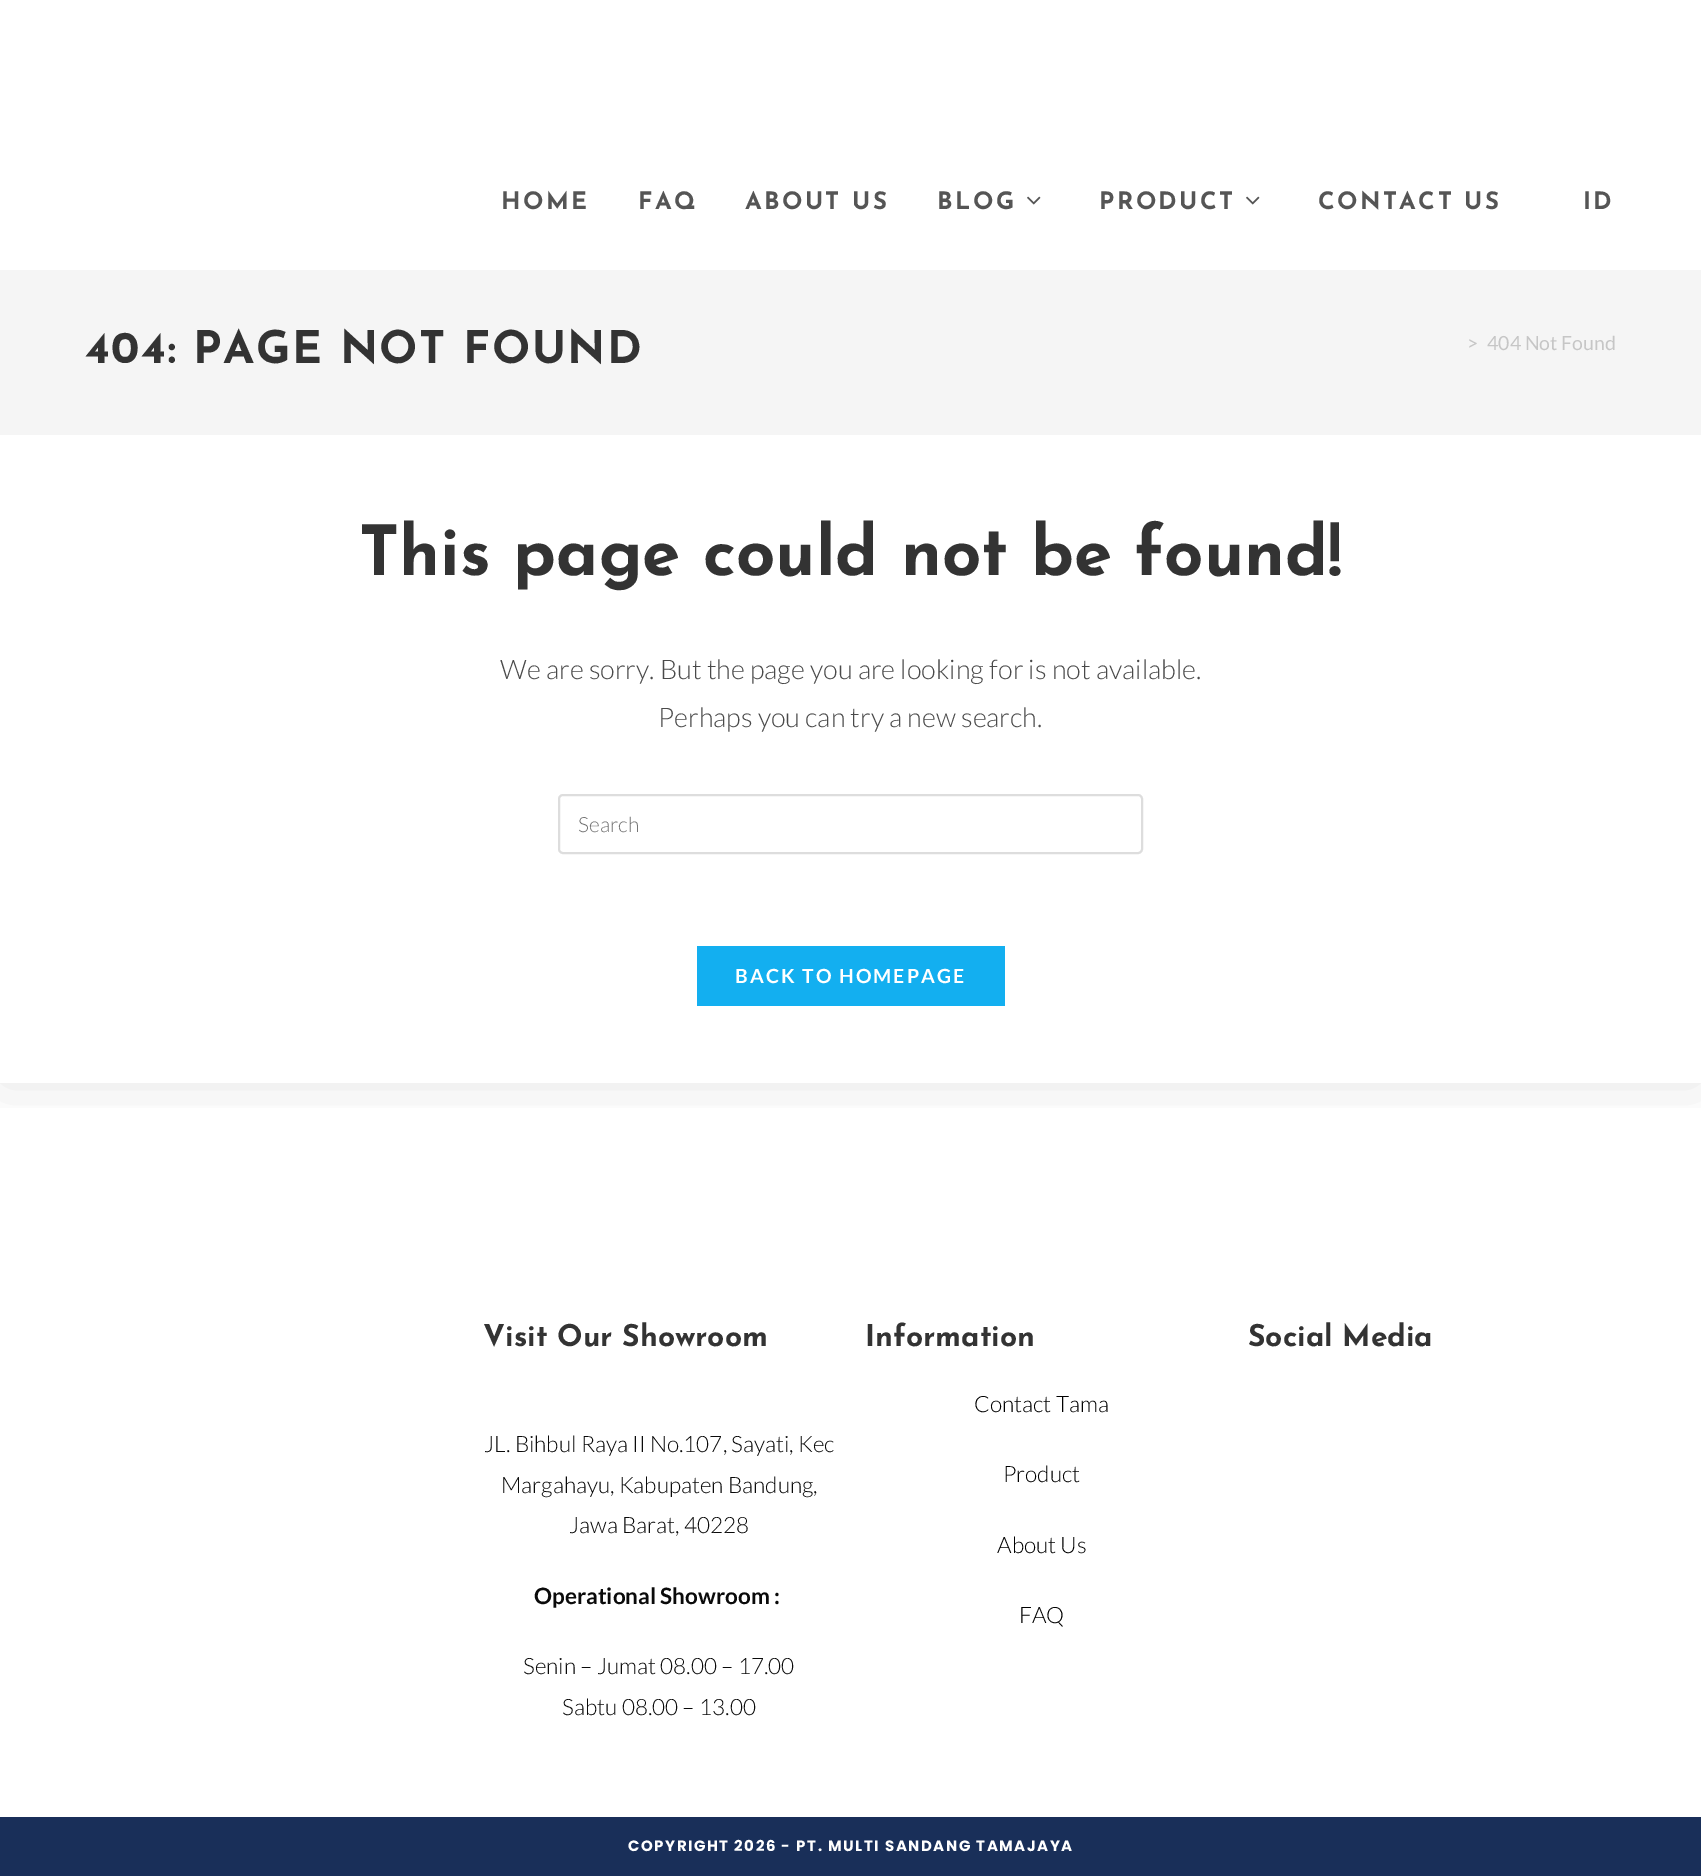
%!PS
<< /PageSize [1701 1876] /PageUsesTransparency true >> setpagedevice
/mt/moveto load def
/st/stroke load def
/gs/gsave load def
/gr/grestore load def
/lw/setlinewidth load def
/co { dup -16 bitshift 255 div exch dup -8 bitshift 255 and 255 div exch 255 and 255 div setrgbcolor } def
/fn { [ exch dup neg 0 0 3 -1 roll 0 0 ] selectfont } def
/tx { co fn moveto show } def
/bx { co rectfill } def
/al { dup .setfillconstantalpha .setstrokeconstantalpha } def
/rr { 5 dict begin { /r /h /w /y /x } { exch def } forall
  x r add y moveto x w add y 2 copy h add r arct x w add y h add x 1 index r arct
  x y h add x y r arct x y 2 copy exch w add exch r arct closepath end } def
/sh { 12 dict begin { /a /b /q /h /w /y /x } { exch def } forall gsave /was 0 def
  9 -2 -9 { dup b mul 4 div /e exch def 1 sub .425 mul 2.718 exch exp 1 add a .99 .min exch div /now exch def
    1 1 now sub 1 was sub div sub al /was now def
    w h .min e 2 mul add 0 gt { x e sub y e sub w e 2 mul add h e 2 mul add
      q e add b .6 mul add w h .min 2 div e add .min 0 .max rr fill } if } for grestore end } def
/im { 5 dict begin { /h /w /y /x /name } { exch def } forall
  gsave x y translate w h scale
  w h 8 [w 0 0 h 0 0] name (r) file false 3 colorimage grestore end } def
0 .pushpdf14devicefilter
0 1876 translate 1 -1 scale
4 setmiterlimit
0 0 1701 1876 16#FFFFFF bx
gs
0 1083 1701 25 rectclip
16#000000 co
0 270 1701 813 0 30 .1 sh
gr
0 232 1701 38 16#FFFFFF bx
(media/1.raw) 1027 196 14 9 im
(media/1.raw) 1246 196 14 9 im
0 270 1701 165 16#F5F5F5 bx
16#DDDDDD co
2 lw
559 795 583 58 4 rr st
697 946 308 60 16#13AFF0 bx
0 1817 1701 59 16#192F59 bx
/JosefinSans-Bold 24 fn
16#555555 co
501 209 mt 2.4 0 (HOME) ashow
638 209 mt 2.4 0 (FAQ) ashow
745 209 mt 2.4 0 (ABOUT US) ashow
937 209 mt 2.4 0 (BLOG) ashow
1099 209 mt 2.4 0 (PRODUCT) ashow
1318 209 mt 2.4 0 (CONTACT US) ashow
1583 209 mt 2.4 0 (ID) ashow
/JosefinSans-Bold 45 fn
16#333333 co
85 363 mt 1.5 0 (404: PAGE NOT FOUND) ashow
(>) 1467 350 /Lato-Regular 19.5 16#C6C6C6 tx
(404 Not Found) 1487 350 /Lato-Regular 19.5 16#C6C6C6 tx
(This page could not be found!) 359 575 /JosefinSans-Bold 69 16#333333 tx
(We are sorry. But the page you are looking for is not available.) 500 679 /Lato-Light 27 16#4A4A4A tx
(Perhaps you can try a new search.) 658 727 /Lato-Light 27 16#4A4A4A tx
(Search) 578 832 /Lato-Light 21 16#757575 tx
/Lato-Bold 19.5 fn
16#FFFFFF co
735 983 mt 2 0 (BACK TO HOMEPAGE) ashow
(Visit Our Showroom) 483 1346 /JosefinSans-Bold 30 16#333333 tx
(JL. Bihbul Raya II No.107, Sayati, Kec) 484 1452 /Lato-Light 22.5 16#0A0A0A tx
(Margahayu, Kabupaten Bandung,) 501 1493 /Lato-Light 22.5 16#0A0A0A tx
(Jawa Barat, 40228) 569 1533 /Lato-Light 22.5 16#0A0A0A tx
(Operational Showroom :) 534 1604 /Lato-Bold 22.5 16#0A0A0A tx
(Senin – Jumat 08.00 – 17.00) 523 1674 /Lato-Light 22.5 16#0A0A0A tx
(Sabtu 08.00 – 13.00) 562 1715 /Lato-Light 22.5 16#0A0A0A tx
(Information) 865 1346 /JosefinSans-Bold 30 16#333333 tx
(Contact Tama) 974 1412 /Lato-Light 22.5 16#000000 tx
(Product) 1003 1482 /Lato-Light 22.5 16#000000 tx
(About Us) 997 1553 /Lato-Light 22.5 16#000000 tx
(FAQ) 1019 1623 /Lato-Light 22.5 16#000000 tx
(Social Media) 1248 1346 /JosefinSans-Bold 30 16#333333 tx
/Poppins-Bold 15 fn
16#FFFFFF co
628 1851 mt 1.5 0 (COPYRIGHT 2026 - PT. MULTI SANDANG TAMAJAYA) ashow
.poppdf14devicefilter showpage
